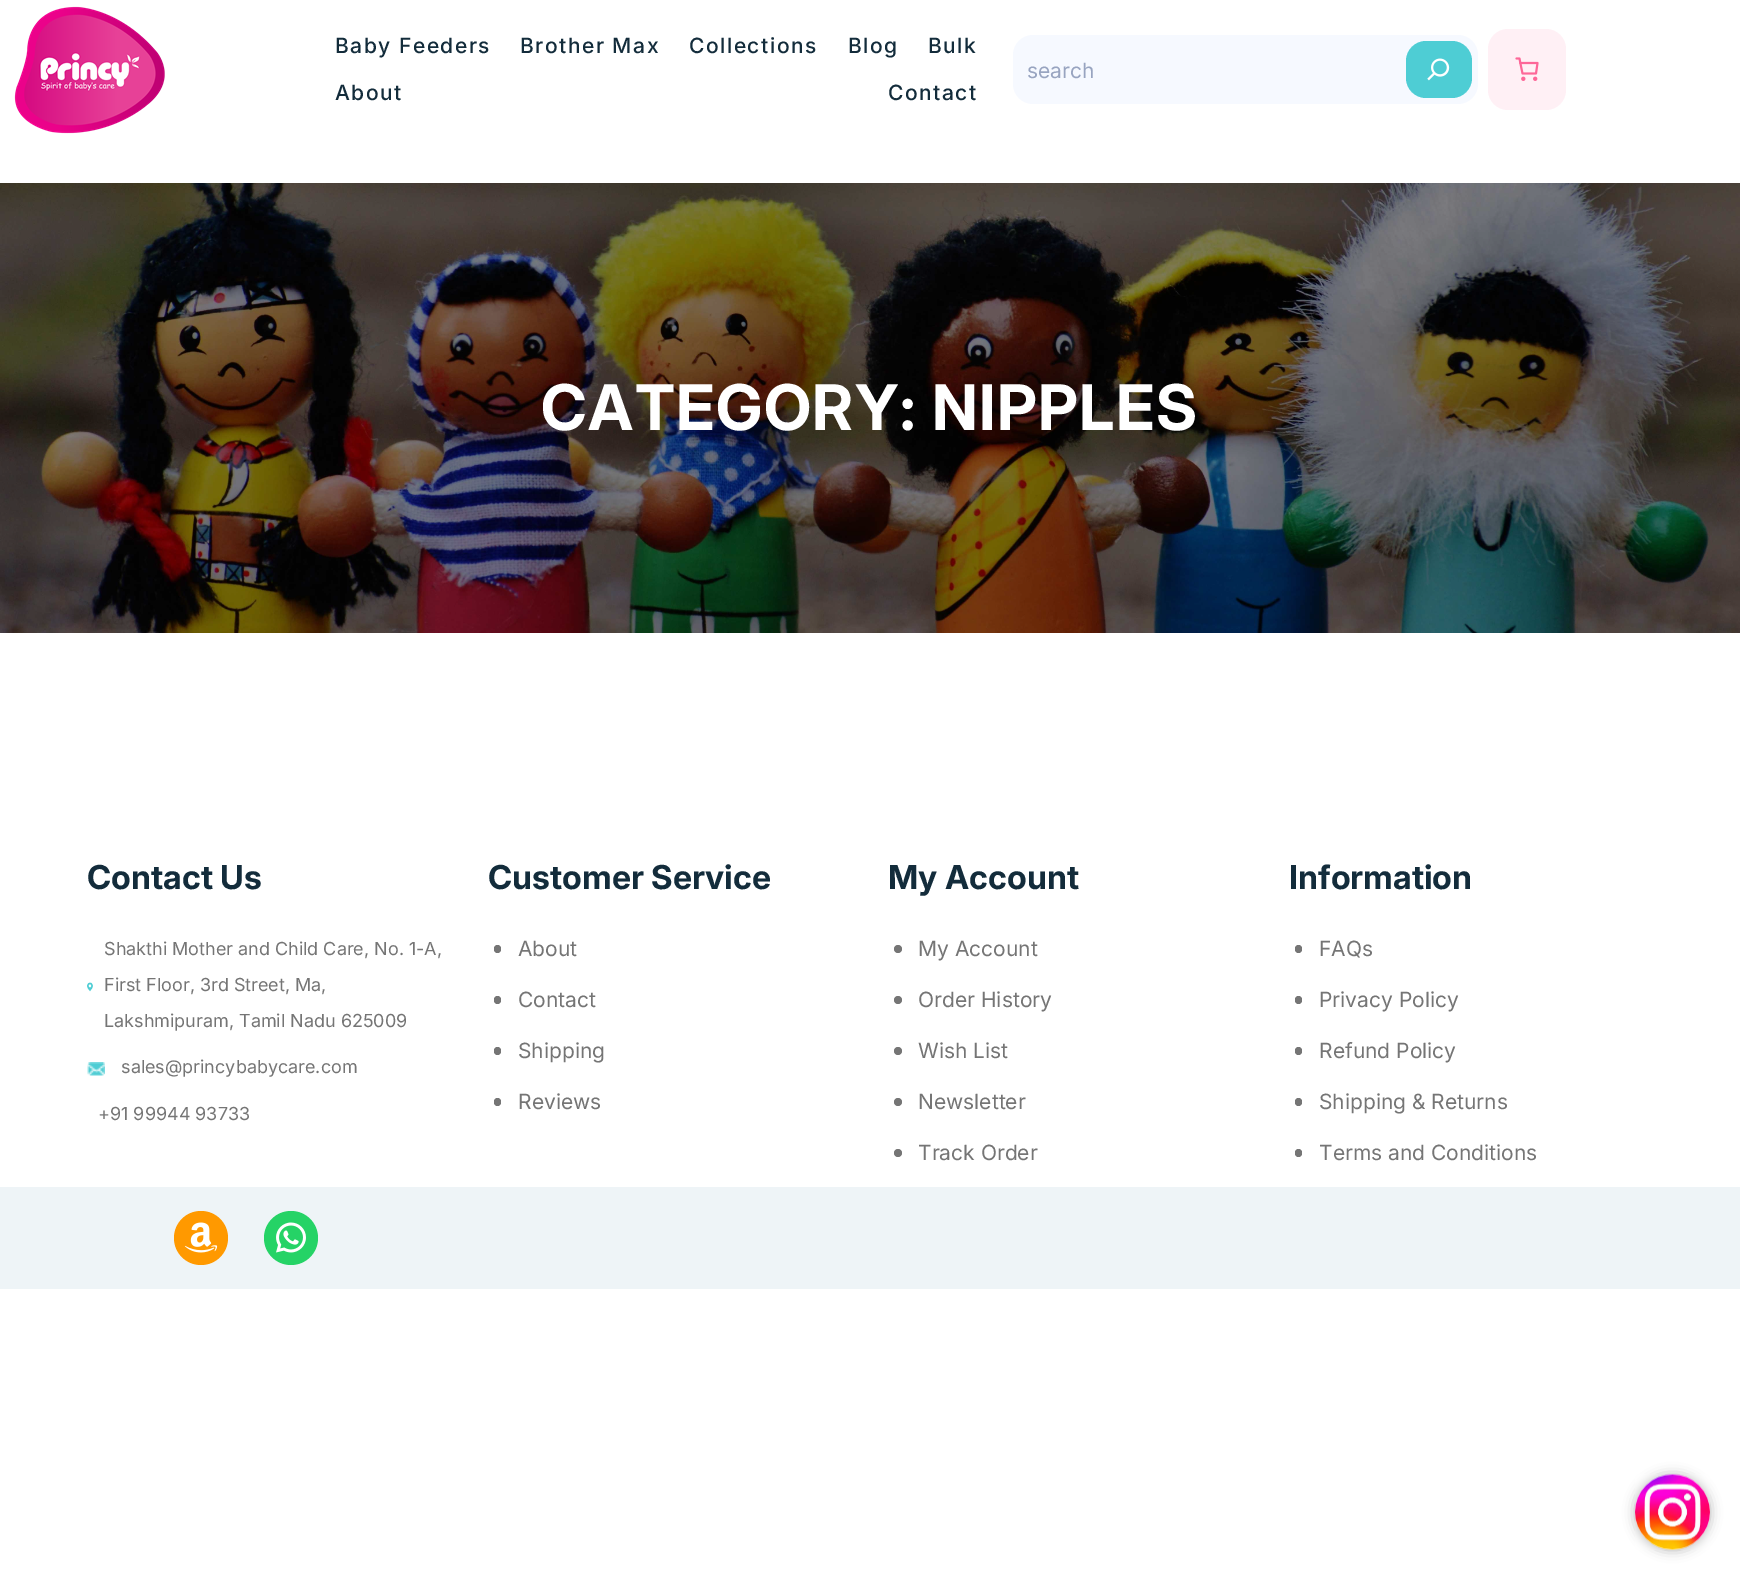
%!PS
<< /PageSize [1740 1588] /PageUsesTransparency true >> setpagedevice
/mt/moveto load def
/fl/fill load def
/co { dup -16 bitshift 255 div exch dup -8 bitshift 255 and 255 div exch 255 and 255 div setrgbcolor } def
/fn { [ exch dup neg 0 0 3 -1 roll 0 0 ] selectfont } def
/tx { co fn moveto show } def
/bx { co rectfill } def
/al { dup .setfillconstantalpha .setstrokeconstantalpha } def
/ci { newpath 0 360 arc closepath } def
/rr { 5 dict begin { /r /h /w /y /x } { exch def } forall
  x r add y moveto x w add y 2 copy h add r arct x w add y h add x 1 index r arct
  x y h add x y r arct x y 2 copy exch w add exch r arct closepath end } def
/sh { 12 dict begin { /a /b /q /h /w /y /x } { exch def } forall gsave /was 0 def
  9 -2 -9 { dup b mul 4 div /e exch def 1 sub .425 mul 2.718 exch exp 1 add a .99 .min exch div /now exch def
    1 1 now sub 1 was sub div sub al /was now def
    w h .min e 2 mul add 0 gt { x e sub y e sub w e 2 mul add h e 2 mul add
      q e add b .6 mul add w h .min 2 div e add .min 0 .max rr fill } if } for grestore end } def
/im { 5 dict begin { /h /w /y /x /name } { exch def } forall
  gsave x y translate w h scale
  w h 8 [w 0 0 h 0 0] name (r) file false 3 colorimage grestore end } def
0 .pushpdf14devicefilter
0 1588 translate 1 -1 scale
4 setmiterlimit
0 0 1740 1588 16#FFFFFF bx
(media/1.raw) 14 6 151 128 im
16#F6F9FF co
1013 35 465 69 20 rr fl
16#4ECDD4 co
1406 41 66 57 20 rr fl
(media/2.raw) 1427 58 23 23 im
16#FFF0F5 co
1488 29 78 81 20 rr fl
(media/3.raw) 1515 57 24 24 im
(media/4.raw) 0 183 1740 450 im
(media/5.raw) 87 982 6 10 im
(media/6.raw) 87 1062 18 14 im
16#757575 co
494 945 7 8 3.5 rr fl
494 996 7 8 3.5 rr fl
494 1047 7 8 3.5 rr fl
494 1098 7 8 3.5 rr fl
898 949 4 ci fl
898 1000 4 ci fl
898 1051 4 ci fl
898 1102 4 ci fl
898 1153 4 ci fl
1295 945 7 8 3.5 rr fl
1295 996 7 8 3.5 rr fl
1295 1047 7 8 3.5 rr fl
1295 1098 7 8 3.5 rr fl
1295 1149 7 8 3.5 rr fl
0 1187 1740 102 16#EEF4F7 bx
16#FF9900 co
201 1238 27 ci fl
(media/7.raw) 184 1222 34 31 im
16#25D366 co
291 1238 27 ci fl
(media/8.raw) 276 1222 30 31 im
16#000000 co
1635 1475 75 75 37.5 6 .3 sh
(media/9.raw) 1635 1474 75 76 im
/Inter-Medium 21 fn
16#132C3B co
335 53 mt 1.5 0 (Baby Feeders) ashow
520 53 mt 1.5 0 (Brother Max) ashow
689 53 mt 1.5 0 (Collections) ashow
848 53 mt 1.5 0 (Blog) ashow
928 53 mt 1.5 0 (Bulk) ashow
335 100 mt 1.5 0 (About) ashow
888 100 mt 1.5 0 (Contact) ashow
(search) 1027 78 /Inter-Regular 21 16#98A4C0 tx
/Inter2-Bold 63 fn
16#FFFFFF co
541 430 mt 1.5 0 (CATEGORY: NIPPLES) ashow
(Contact Us) 87 889 /Inter-Bold 33 16#132C3B tx
(Shakthi Mother and Child Care, No. 1-A,) 104 955 /Inter-Regular 18 16#757575 tx
(First Floor, 3rd Street, Ma,) 104 991 /Inter-Regular 18 16#757575 tx
(Lakshmipuram, Tamil Nadu 625009) 104 1027 /Inter-Regular 18 16#757575 tx
(sales@princybabycare.com) 121 1073 /Inter-Regular 18 16#757575 tx
(+91 99944 93733) 98 1120 /Inter-Regular 18 16#757575 tx
(Customer Service) 488 889 /Inter-Bold 33 16#132C3B tx
(About) 518 956 /Inter-Regular 21 16#757575 tx
(Contact) 518 1007 /Inter-Regular 21 16#757575 tx
(Shipping) 518 1058 /Inter-Regular 21 16#757575 tx
(Reviews) 518 1109 /Inter-Regular 21 16#757575 tx
(My Account) 888 889 /Inter-Bold 33 16#132C3B tx
(My Account) 918 956 /Inter-Regular 21 16#757575 tx
(Order History) 918 1007 /Inter-Regular 21 16#757575 tx
(Wish List) 918 1058 /Inter-Regular 21 16#757575 tx
(Newsletter) 918 1109 /Inter-Regular 21 16#757575 tx
(Track Order) 918 1160 /Inter-Regular 21 16#757575 tx
(Information) 1289 889 /Inter-Bold 33 16#132C3B tx
(FAQs) 1319 956 /Inter-Regular 21 16#757575 tx
(Privacy Policy) 1319 1007 /Inter-Regular 21 16#757575 tx
(Refund Policy) 1319 1058 /Inter-Regular 21 16#757575 tx
(Shipping & Returns) 1319 1109 /Inter-Regular 21 16#757575 tx
(Terms and Conditions) 1319 1160 /Inter-Regular 21 16#757575 tx
.poppdf14devicefilter showpage
